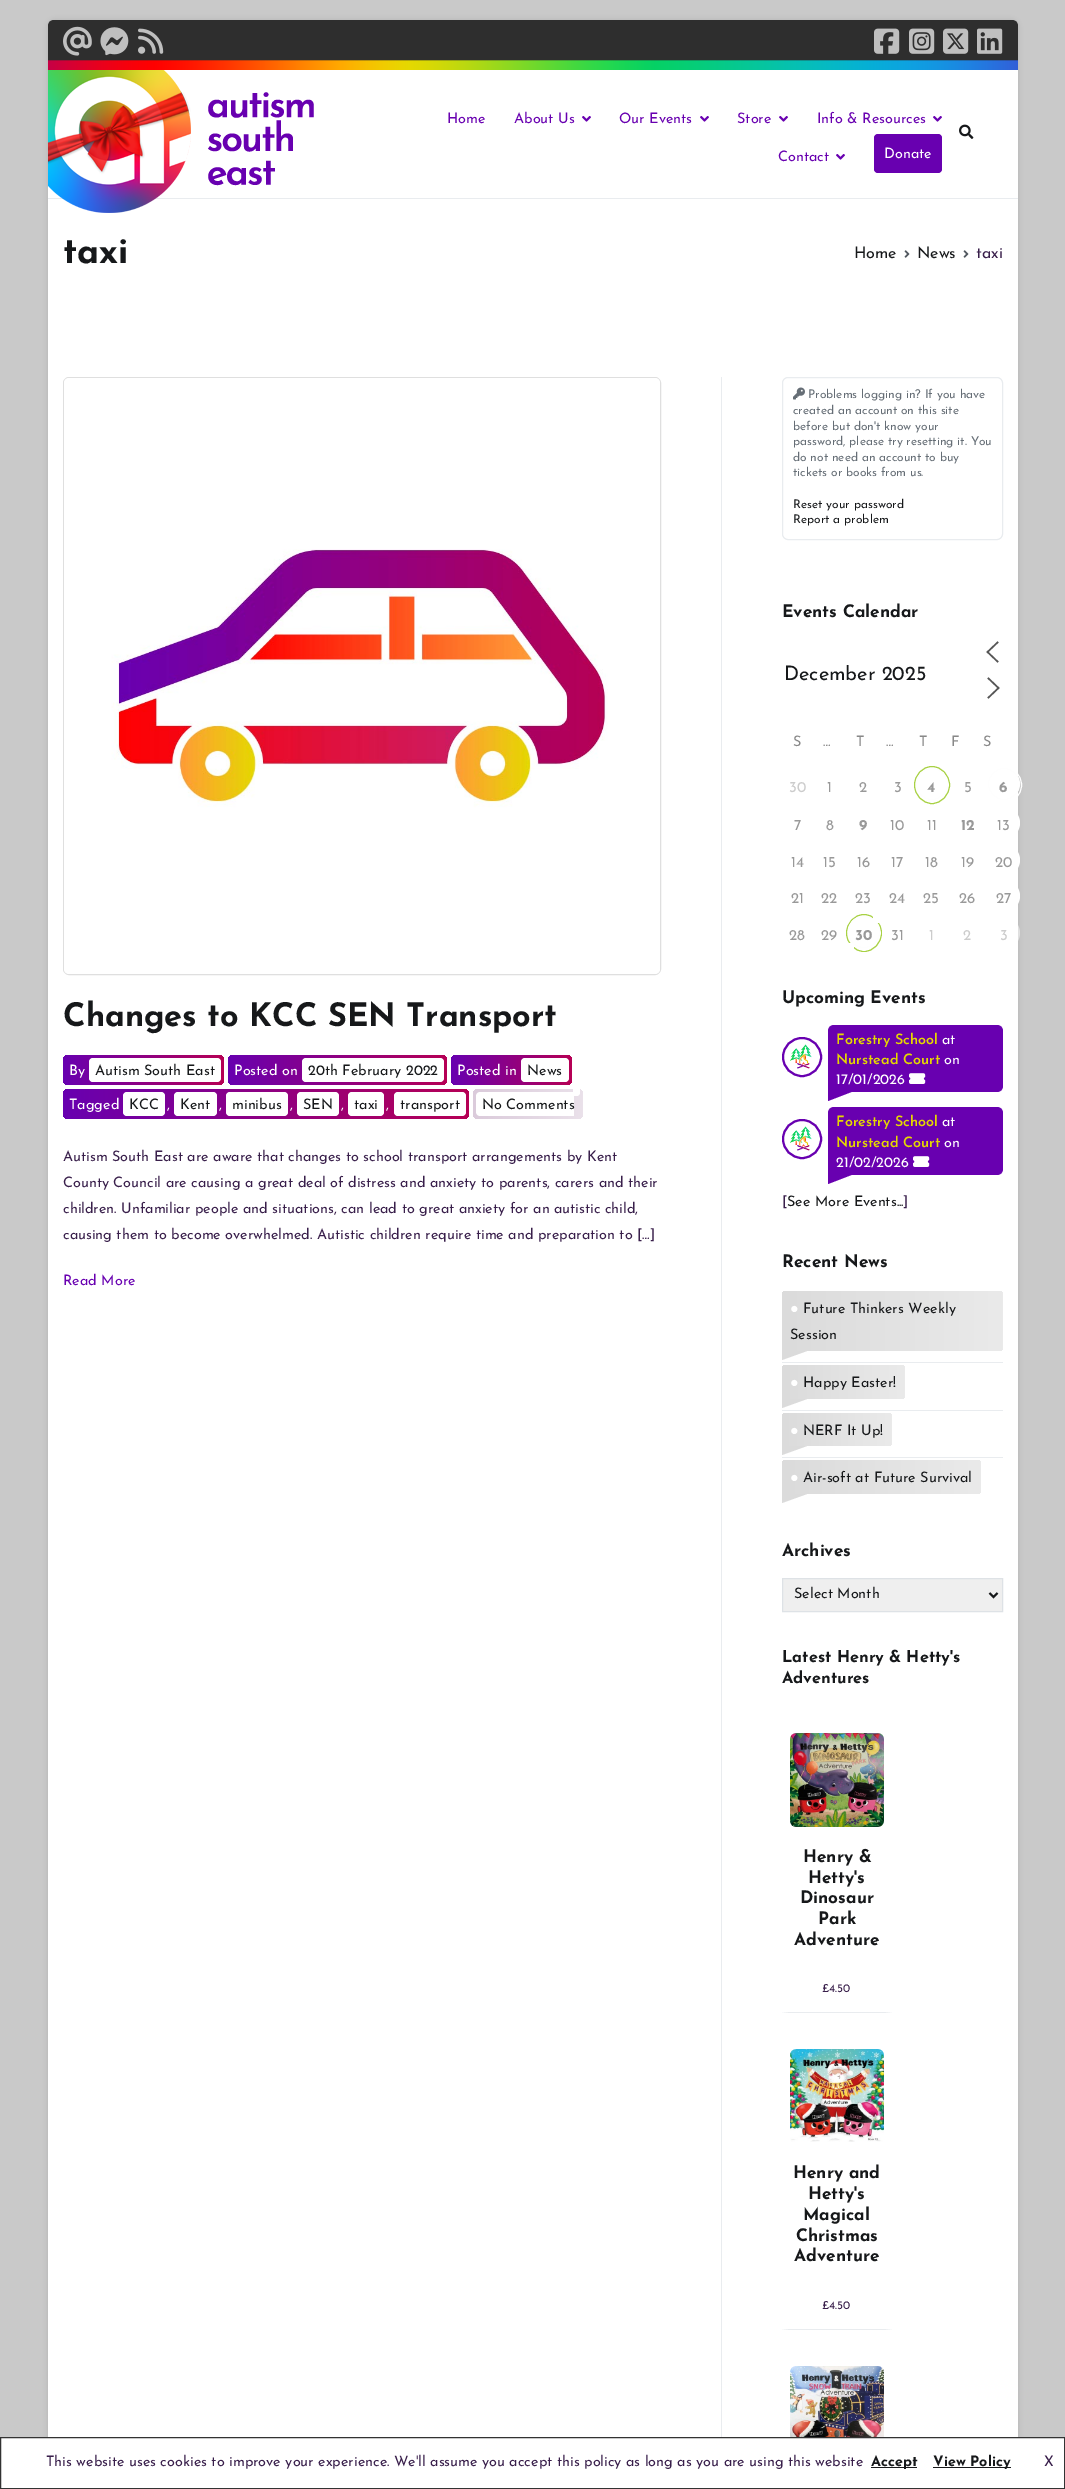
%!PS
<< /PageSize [1065 2489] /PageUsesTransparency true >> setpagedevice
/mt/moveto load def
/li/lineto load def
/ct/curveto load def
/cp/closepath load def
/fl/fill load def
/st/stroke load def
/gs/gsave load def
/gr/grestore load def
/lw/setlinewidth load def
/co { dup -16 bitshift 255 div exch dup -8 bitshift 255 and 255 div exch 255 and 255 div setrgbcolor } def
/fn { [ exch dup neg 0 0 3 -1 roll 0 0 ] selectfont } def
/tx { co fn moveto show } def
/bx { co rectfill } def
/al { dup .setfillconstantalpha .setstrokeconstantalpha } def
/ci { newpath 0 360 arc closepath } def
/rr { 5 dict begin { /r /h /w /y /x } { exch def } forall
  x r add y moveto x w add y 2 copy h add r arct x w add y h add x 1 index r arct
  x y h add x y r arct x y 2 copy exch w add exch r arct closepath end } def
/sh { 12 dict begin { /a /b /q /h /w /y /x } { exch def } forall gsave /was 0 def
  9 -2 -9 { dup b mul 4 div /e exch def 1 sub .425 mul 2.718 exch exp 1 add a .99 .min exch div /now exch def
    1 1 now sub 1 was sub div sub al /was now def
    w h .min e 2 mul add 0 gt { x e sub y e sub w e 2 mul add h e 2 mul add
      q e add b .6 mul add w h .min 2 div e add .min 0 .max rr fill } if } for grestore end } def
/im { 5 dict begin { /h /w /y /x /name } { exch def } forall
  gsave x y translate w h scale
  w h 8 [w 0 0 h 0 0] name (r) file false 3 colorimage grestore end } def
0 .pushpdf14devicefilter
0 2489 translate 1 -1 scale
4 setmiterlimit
0 0 1065 2489 16#C9C9C9 bx
16#000000 co
48 20 970 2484 7 2.5 .1 sh
16#FFFFFF co
48 20 970 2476 7 rr fl
48 198 970 1 16#E9ECEF bx
0.82 al
16#000000 co
54 20 mt 1012 20 li 1015.5 20 1018 22.5 1018 26 ct 1018 70 li 48 70 li 48 26 li 48 22.5 50.5 20 54 20 ct cp fl
1 al
(media/1.raw) 48 60 970 10 im
(media/2.raw) 63 26 29 30 im
(media/3.raw) 100 27 29 29 im
(media/4.raw) 138 28 26 26 im
(media/5.raw) 874 28 26 26 im
(media/6.raw) 909 28 26 26 im
(media/7.raw) 943 28 26 26 im
(media/8.raw) 977 28 26 26 im
(media/9.raw) 48 70 266 143 im
(media/10.raw) 582 116 9 6 im
(media/10.raw) 700 116 9 6 im
(media/10.raw) 779 116 9 6 im
(media/10.raw) 933 116 9 6 im
(media/10.raw) 836 154 9 6 im
16#6800B0 co
874 134 68 39 4 rr fl
(media/11.raw) 959 124 15 15 im
(media/12.raw) 904 250 6 8 im
(media/12.raw) 963 250 6 8 im
16#DFDFDF co
63.5 377.5 597 597 5.5 rr st
(media/13.raw) 64 378 596 596 im
gs 63 1055 161 30 6 rr clip newpath
<< /ShadingType 2 /ColorSpace /DeviceRGB /Coords [63 1070 224 1070] /Extend [true true] /Function << /FunctionType 2 /Domain [0 1] /C0 [.408 0 .69] /C1 [.714 0 .333] /N 1 >> >> shfill gr
16#FFFFFF co
89 1058 132 24 4 rr fl
gs 228 1055 219 30 6 rr clip newpath
<< /ShadingType 2 /ColorSpace /DeviceRGB /Coords [228 1070 447 1070] /Extend [true true] /Function << /FunctionType 2 /Domain [0 1] /C0 [.408 0 .69] /C1 [.714 0 .333] /N 1 >> >> shfill gr
302 1058 142 24 4 rr fl
gs 451 1055 121 30 6 rr clip newpath
<< /ShadingType 2 /ColorSpace /DeviceRGB /Coords [451 1070 572 1070] /Extend [true true] /Function << /FunctionType 2 /Domain [0 1] /C0 [.408 0 .69] /C1 [.714 0 .333] /N 1 >> >> shfill gr
521 1058 48 24 4 rr fl
gs 63 1089 406 30 6 rr clip newpath
<< /ShadingType 2 /ColorSpace /DeviceRGB /Coords [63 1104 469 1104] /Extend [true true] /Function << /FunctionType 2 /Domain [0 1] /C0 [.408 0 .69] /C1 [.714 0 .333] /N 1 >> >> shfill gr
123 1092 42 24 4 rr fl
174 1092 43 24 4 rr fl
226 1092 62 24 4 rr fl
297 1092 42 24 4 rr fl
348 1092 36 24 4 rr fl
394 1092 72 24 4 rr fl
gs 473 1089 110 30 6 rr clip newpath
<< /ShadingType 2 /ColorSpace /DeviceRGB /Coords [473 1104 583 1104] /Extend [true true] /Function << /FunctionType 2 /Domain [0 1] /C0 [.859 .796 .859] /C1 [.918 .882 .918] /N 1 >> >> shfill gr
480 1092 mt 574 1092 li 574 1116 li 480 1116 li 478 1116 476 1114 476 1112 ct 476 1096 li 476 1094 478 1092 480 1092 ct cp fl
573 1086 mt 576.5 1086 li 578.5 1086 580 1087.5 580 1089.5 ct 580 1092.5 li 580 1094.5 578.5 1096 576.5 1096 ct 573 1096 li cp fl
721 377 1 2060 16#E9ECEF bx
782.5 377.5 220 162 5.5 rr st
(media/14.raw) 793 387 12 13 im
16#555555 co
1.5 lw
2 setlinecap
997.5 661.5 mt 987.5 652 li 997.5 642.5 li 988.5 697.5 mt 998.5 688 li 988.5 678.5 li st
16#A8D144 co
1 lw
0 setlinecap
932 766.5 mt 941.5 766.5 949.5 775 949.5 785 ct 949.5 795 941.5 803.5 932 803.5 ct 922.5 803.5 914.5 795 914.5 785 ct 914.5 775 922.5 766.5 932 766.5 ct cp st
16#FFFFFF co
932 784 15.5 ci gs fl gr
16#FEFEFE co
st
16#FFFFFF co
1004 766.5 mt 1013.5 766.5 1021.5 775 1021.5 785 ct 1021.5 795 1013.5 803.5 1004 803.5 ct 994.5 803.5 986.5 795 986.5 785 ct 986.5 775 994.5 766.5 1004 766.5 ct cp st
1004 784 15.5 ci gs fl gr
16#FEFEFE co
st
16#FFFFFF co
1004 823 16 ci fl
1004 860 16 ci fl
1004 896 16 ci fl
gs
845.5 914 mt 872.5 914 li 872.5 923.5 li 881.5 923.5 li 881.5 952 li 854.5 952 li 854.5 942.5 li 845.5 942.5 li cp clip newpath
16#A8D144 co
864 914.5 mt 873.5 914.5 881.5 923 881.5 933 ct 881.5 943 873.5 951.5 864 951.5 ct 854.5 951.5 846.5 943 846.5 933 ct 846.5 923 854.5 914.5 864 914.5 ct cp st
gr
864 916 mt 867 916 870 917 872.5 918.5 ct 872.5 923.5 li 877.5 923.5 li 886.5 938.5 868.5 955 854.5 945 ct 854.5 942.5 li 852 942.5 li 843 932.5 850 916 864 916 ct cp fl
16#FEFEFE co
877.5 923.5 mt 886.5 938.5 868.5 955 854.5 945 ct 854.5 943.5 li 867.5 954.5 886 938 876.5 923.5 ct cp 864 916 mt 850 916 843 932.5 852 942.5 ct 853.5 942.5 li 840.5 930 857.5 909.5 872.5 919.5 ct 872.5 918.5 li 870 917 867 916 864 916 ct cp eofill
0.5 al
16#FFFFFF co
1004 933 16 ci fl
1 al
16#6800B0 co
2 lw
802 1057 19 ci st
(media/15.raw) 790 1044 22 25 im
834 1025 mt 997 1025 li 1000.5 1025 1003 1027.5 1003 1031 ct 1003 1086 li 1003 1089.5 1000.5 1092 997 1092 ct 828 1092 li 828 1031 li 828 1027.5 830.5 1025 834 1025 ct cp fl
(media/16.raw) 909 1073 17 11 im
828 1091 mt 854 1091 li 828 1101 li cp fl
802 1139 19 ci st
(media/17.raw) 790 1126 22 25 im
834 1107 mt 997 1107 li 1000.5 1107 1003 1109.5 1003 1113 ct 1003 1169 li 1003 1172.5 1000.5 1175 997 1175 ct 828 1175 li 828 1113 li 828 1109.5 830.5 1107 834 1107 ct cp fl
(media/16.raw) 913 1156 17 11 im
828 1174 mt 854 1174 li 828 1184 li cp fl
782 1362 221 1 16#E9ECEF bx
gs 786 1291 mt 999 1291 li 1001 1291 1003 1293 1003 1295 ct 1003 1347 li 1003 1349 1001 1351 999 1351 ct 782 1351 li 782 1295 li 782 1293 784 1291 786 1291 ct cp clip newpath
<< /ShadingType 2 /ColorSpace /DeviceRGB /Coords [782 1321 1003 1321] /Extend [true true] /Function << /FunctionType 2 /Domain [0 1] /C0 [.859 .859 .859] /C1 [.918 .918 .918] /N 1 >> >> shfill gr
782 1410 221 1 16#E9ECEF bx
gs 786 1365 mt 901 1365 li 903 1365 905 1367 905 1369 ct 905 1395 li 905 1397 903 1399 901 1399 ct 782 1399 li 782 1369 li 782 1367 784 1365 786 1365 ct cp clip newpath
<< /ShadingType 2 /ColorSpace /DeviceRGB /Coords [782 1382 905 1382] /Extend [true true] /Function << /FunctionType 2 /Domain [0 1] /C0 [.859 .859 .859] /C1 [.918 .918 .918] /N 1 >> >> shfill gr
782 1457 221 1 16#E9ECEF bx
gs 786 1413 mt 888 1413 li 890 1413 892 1415 892 1417 ct 892 1442 li 892 1444 890 1446 888 1446 ct 782 1446 li 782 1417 li 782 1415 784 1413 786 1413 ct cp clip newpath
<< /ShadingType 2 /ColorSpace /DeviceRGB /Coords [782 1430 892 1430] /Extend [true true] /Function << /FunctionType 2 /Domain [0 1] /C0 [.859 .859 .859] /C1 [.918 .918 .918] /N 1 >> >> shfill gr
gs 786 1460 mt 977 1460 li 979 1460 981 1462 981 1464 ct 981 1490 li 981 1492 979 1494 977 1494 ct 782 1494 li 782 1464 li 782 1462 784 1460 786 1460 ct cp clip newpath
<< /ShadingType 2 /ColorSpace /DeviceRGB /Coords [782 1477 981 1477] /Extend [true true] /Function << /FunctionType 2 /Domain [0 1] /C0 [.859 .859 .859] /C1 [.918 .918 .918] /N 1 >> >> shfill gr
16#EFEFEF co
782.5 1578.5 mt 1002.5 1578.5 li 1002.5 1611.5 li 782.5 1611.5 li cp gs fl gr
16#DEE2E6 co
1 lw
st
16#16181A co
2 lw
989.5 1593 mt 993.5 1597 li 997.5 1593 li st
16#E9ECEF co
892 2013 mt 782 2013 li 790 2012 li 884 2012 li cp fl
(media/18.raw) 790 1733 94 94 im
892 2330 mt 782 2330 li 790 2329 li 884 2329 li cp fl
(media/19.raw) 790 2049 94 93 im
(media/20.raw) 790 2366 94 71 im
16#FFFFFF co
.5 2437.5 mt 1064.5 2437.5 li 1064.5 2488.5 li .5 2488.5 li cp gs fl gr
16#333333 co
1 lw
st
871 2467 46 1 16#16181A bx
933 2467 78 1 16#16181A bx
(Home) 447 123 /JosefinSans-Regular 14.4 16#6800B0 tx
(About Us) 514 123 /JosefinSans-Regular 14.4 16#6800B0 tx
(Our Events) 619 123 /JosefinSans-Regular 14.4 16#6800B0 tx
(Store) 737 123 /JosefinSans-Regular 14.4 16#6800B0 tx
(Info & Resources) 817 123 /JosefinSans-Regular 14.4 16#6800B0 tx
(Contact) 778 161 /JosefinSans-Regular 14.4 16#6800B0 tx
(Donate) 884 158 /JosefinSans-Regular 14.4 16#FFFFFF tx
(taxi) 63 263 /JosefinSans-Bold 36 16#16181A tx
(Home) 854 258 /JosefinSans-Regular 16 16#16181A tx
(News) 917 258 /JosefinSans-Regular 16 16#16181A tx
(taxi) 976 258 /JosefinSans-Regular 16 16#391F4B tx
(Changes to KCC SEN Transport) 63 1026 /JosefinSans-Bold 32.4 16#16181A tx
(By) 69 1075 /JosefinSans-Regular 14.4 16#FFFFFF tx
(Autism South East) 95 1075 /JosefinSans-Regular 14.4 16#16181A tx
(Posted on) 234 1075 /JosefinSans-Regular 14.4 16#FFFFFF tx
(20th February 2022) 308 1075 /JosefinSans-Regular 14.4 16#16181A tx
(Posted in) 457 1075 /JosefinSans-Regular 14.4 16#FFFFFF tx
(News) 527 1075 /JosefinSans-Regular 14.4 16#16181A tx
(Tagged) 69 1109 /JosefinSans-Regular 14.4 16#FFFFFF tx
(KCC) 129 1109 /JosefinSans-Regular 14.4 16#16181A tx
(,) 167 1109 /JosefinSans-Regular 14.4 16#FFFFFF tx
(Kent) 180 1109 /JosefinSans-Regular 14.4 16#16181A tx
(,) 219 1109 /JosefinSans-Regular 14.4 16#FFFFFF tx
(minibus) 232 1109 /JosefinSans-Regular 14.4 16#16181A tx
(,) 290 1109 /JosefinSans-Regular 14.4 16#FFFFFF tx
(SEN) 303 1109 /JosefinSans-Regular 14.4 16#16181A tx
(,) 341 1109 /JosefinSans-Regular 14.4 16#FFFFFF tx
(taxi) 354 1109 /JosefinSans-Regular 14.4 16#16181A tx
(,) 386 1109 /JosefinSans-Regular 14.4 16#FFFFFF tx
(transport) 400 1109 /JosefinSans-Regular 14.4 16#16181A tx
(No Comments) 482 1109 /JosefinSans-Regular 14.4 16#16181A tx
(Autism South East are aware that changes to school transport arrangements by Kent) 63 1161 /JosefinSans-Regular 14.4 16#391F4B tx
(County Council are causing a great deal of distress and anxiety to parents, carers and their) 63 1187 /JosefinSans-Regular 14.4 16#391F4B tx
(children. Unfamiliar people and situations, can lead to great anxiety for an autistic child,) 63 1213 /JosefinSans-Regular 14.4 16#391F4B tx
(causing them to become overwhelmed. Autistic children require time and preparation to […]) 63 1239 /JosefinSans-Regular 14.4 16#391F4B tx
(Read More) 63 1285 /JosefinSans-Regular 14.4 16#6800B0 tx
(Problems logging in? If you have) 808 398 /JosefinSans-Regular 12 16#666E76 tx
(created an account on this site) 793 414 /JosefinSans-Regular 12 16#666E76 tx
(before but don't know your) 793 430 /JosefinSans-Regular 12 16#666E76 tx
(password, please try resetting it. You) 793 445 /JosefinSans-Regular 12 16#666E76 tx
(do not need an account to buy) 793 461 /JosefinSans-Regular 12 16#666E76 tx
(tickets or books from us.) 793 476 /JosefinSans-Regular 12 16#666E76 tx
(Reset your password) 793 508 /JosefinSans-Regular 12 16#16181A tx
(Report a problem) 793 523 /JosefinSans-Regular 12 16#16181A tx
(Events Calendar) 782 617 /JosefinSans-Bold 17.25 16#16181A tx
gs
784 665 186 20 rectclip
(December 2025) 784 680 /JosefinSans-Regular 20 16#16181A tx
gr
(S) 793 746 /JosefinSans-Regular 14.4 16#888888 tx
(…) 823 746 /JosefinSans-Regular 14.4 16#888888 tx
(T) 856 746 /JosefinSans-Regular 14.4 16#888888 tx
(…) 886 746 /JosefinSans-Regular 14.4 16#888888 tx
(T) 919 746 /JosefinSans-Regular 14.4 16#888888 tx
(F) 951 746 /JosefinSans-Regular 14.4 16#888888 tx
(S) 983 746 /JosefinSans-Regular 14.4 16#888888 tx
(30) 789 792 /JosefinSans-Regular 15 16#CCCCCC tx
(1) 827 792 /JosefinSans-Regular 15 16#999999 tx
(2) 859 792 /JosefinSans-Regular 15 16#999999 tx
(3) 894 792 /JosefinSans-Regular 15 16#999999 tx
(4) 927 792 /JosefinSans-Bold 15 16#999999 tx
(5) 964 792 /JosefinSans-Regular 15 16#999999 tx
(6) 999 792 /JosefinSans-Bold 15 16#999999 tx
(7) 794 830 /JosefinSans-Regular 15 16#999999 tx
(8) 826 830 /JosefinSans-Regular 15 16#999999 tx
(9) 859 830 /JosefinSans-Bold 15 16#999999 tx
(10) 890 830 /JosefinSans-Regular 15 16#999999 tx
(11) 927 830 /JosefinSans-Regular 15 16#999999 tx
(12) 961 830 /JosefinSans-Bold 15 16#999999 tx
(13) 997 830 /JosefinSans-Regular 15 16#999999 tx
(14) 791 867 /JosefinSans-Regular 15 16#999999 tx
(15) 823 867 /JosefinSans-Regular 15 16#999999 tx
(16) 857 867 /JosefinSans-Regular 15 16#999999 tx
(17) 891 867 /JosefinSans-Regular 15 16#999999 tx
(18) 925 867 /JosefinSans-Regular 15 16#999999 tx
(19) 961 867 /JosefinSans-Regular 15 16#999999 tx
(20) 995 867 /JosefinSans-Regular 15 16#999999 tx
(21) 791 903 /JosefinSans-Regular 15 16#999999 tx
(22) 821 903 /JosefinSans-Regular 15 16#999999 tx
(23) 855 903 /JosefinSans-Regular 15 16#999999 tx
(24) 889 903 /JosefinSans-Regular 15 16#999999 tx
(25) 923 903 /JosefinSans-Regular 15 16#999999 tx
(26) 959 903 /JosefinSans-Regular 15 16#999999 tx
(27) 996 903 /JosefinSans-Regular 15 16#999999 tx
(28) 789 940 /JosefinSans-Regular 15 16#999999 tx
(29) 821 940 /JosefinSans-Regular 15 16#999999 tx
(30) 855 940 /JosefinSans-Bold 15 16#999999 tx
(31) 891 940 /JosefinSans-Regular 15 16#999999 tx
(1) 929 940 /JosefinSans-Regular 15 16#CCCCCC tx
(2) 963 940 /JosefinSans-Regular 15 16#CCCCCC tx
(3) 1000 940 /JosefinSans-Regular 15 16#CCCCCC tx
(Upcoming Events) 782 1003 /JosefinSans-Bold 17.25 16#16181A tx
(Forestry School) 836 1044 /JosefinSans-SemiBold 14.4 16#E5D800 tx
(at) 942 1044 /JosefinSans-Regular 14.4 16#FFFFFF tx
(Nurstead Court) 836 1064 /JosefinSans-SemiBold 14.4 16#E5D800 tx
(on) 944 1064 /JosefinSans-Regular 14.4 16#FFFFFF tx
(17/01/2026) 836 1084 /JosefinSans-Regular 14.4 16#FFFFFF tx
(Forestry School) 836 1126 /JosefinSans-SemiBold 14.4 16#E5D800 tx
(at) 942 1126 /JosefinSans-Regular 14.4 16#FFFFFF tx
(Nurstead Court) 836 1147 /JosefinSans-SemiBold 14.4 16#E5D800 tx
(on) 944 1147 /JosefinSans-Regular 14.4 16#FFFFFF tx
(21/02/2026) 836 1167 /JosefinSans-Regular 14.4 16#FFFFFF tx
([) 782 1206 /JosefinSans-Regular 14.4 16#391F4B tx
(See More Events...) 787 1206 /JosefinSans-Regular 14.4 16#16181A tx
(]) 903 1206 /JosefinSans-Regular 14.4 16#391F4B tx
(Recent News) 782 1267 /JosefinSans-Bold 17.25 16#16181A tx
(●) 790 1313 /LiberationSerif-Regular 14.4 16#FFFFFF tx
(Future Thinkers Weekly) 803 1313 /JosefinSans-Regular 14.4 16#16181A tx
(Session) 790 1339 /JosefinSans-Regular 14.4 16#16181A tx
(●) 790 1387 /LiberationSerif-Regular 14.4 16#FFFFFF tx
(Happy Easter!) 803 1387 /JosefinSans-Regular 14.4 16#16181A tx
16#DBDBDB co
782 1351 mt 807 1351 li 782 1360 li cp 782 1399 mt 807 1399 li 782 1408 li cp fl
(●) 790 1435 /LiberationSerif-Regular 14.4 16#FFFFFF tx
(NERF It Up!) 803 1435 /JosefinSans-Regular 14.4 16#16181A tx
(●) 790 1482 /LiberationSerif-Regular 14.4 16#FFFFFF tx
(Air-soft at Future Survival) 803 1482 /JosefinSans-Regular 14.4 16#16181A tx
16#DBDBDB co
782 1446 mt 807 1446 li 782 1455 li cp 782 1494 mt 807 1494 li 782 1503 li cp fl
(Archives) 782 1556 /JosefinSans-Bold 17.25 16#16181A tx
(Select Month) 794 1598 /JosefinSans-Regular 14.4 16#16181A tx
(Latest Henry & Hetty's) 782 1662 /JosefinSans-Bold 16.25 16#16181A tx
(Adventures) 782 1683 /JosefinSans-Bold 16.25 16#16181A tx
(Henry &) 803 1862 /JosefinSans-Bold 17.25 16#16181A tx
(Hetty's) 808 1883 /JosefinSans-Bold 17.25 16#16181A tx
(Dinosaur) 800 1903 /JosefinSans-Bold 17.25 16#16181A tx
(Park) 818 1924 /JosefinSans-Bold 17.25 16#16181A tx
(Adventure) 794 1945 /JosefinSans-Bold 17.25 16#16181A tx
(£4.50) 822 1992 /JosefinSans-Regular 11.5 16#391F4B tx
(Henry and) 793 2178 /JosefinSans-Bold 17.25 16#16181A tx
(Hetty's) 808 2199 /JosefinSans-Bold 17.25 16#16181A tx
(Magical) 803 2220 /JosefinSans-Bold 17.25 16#16181A tx
(Christmas) 796 2241 /JosefinSans-Bold 17.25 16#16181A tx
(Adventure) 794 2261 /JosefinSans-Bold 17.25 16#16181A tx
(£4.50) 822 2309 /JosefinSans-Regular 11.5 16#391F4B tx
(This website uses cookies to improve your experience. We'll assume you accept this policy as long as you are using this website) 46 2466 /JosefinSans-Regular 14.4 16#391F4B tx
(Accept) 871 2466 /JosefinSans-Bold 14.4 16#16181A tx
(View Policy) 933 2466 /JosefinSans-Bold 14.4 16#16181A tx
(X) 1044 2466 /JosefinSans-Regular 14.4 16#391F4B tx
.poppdf14devicefilter showpage
